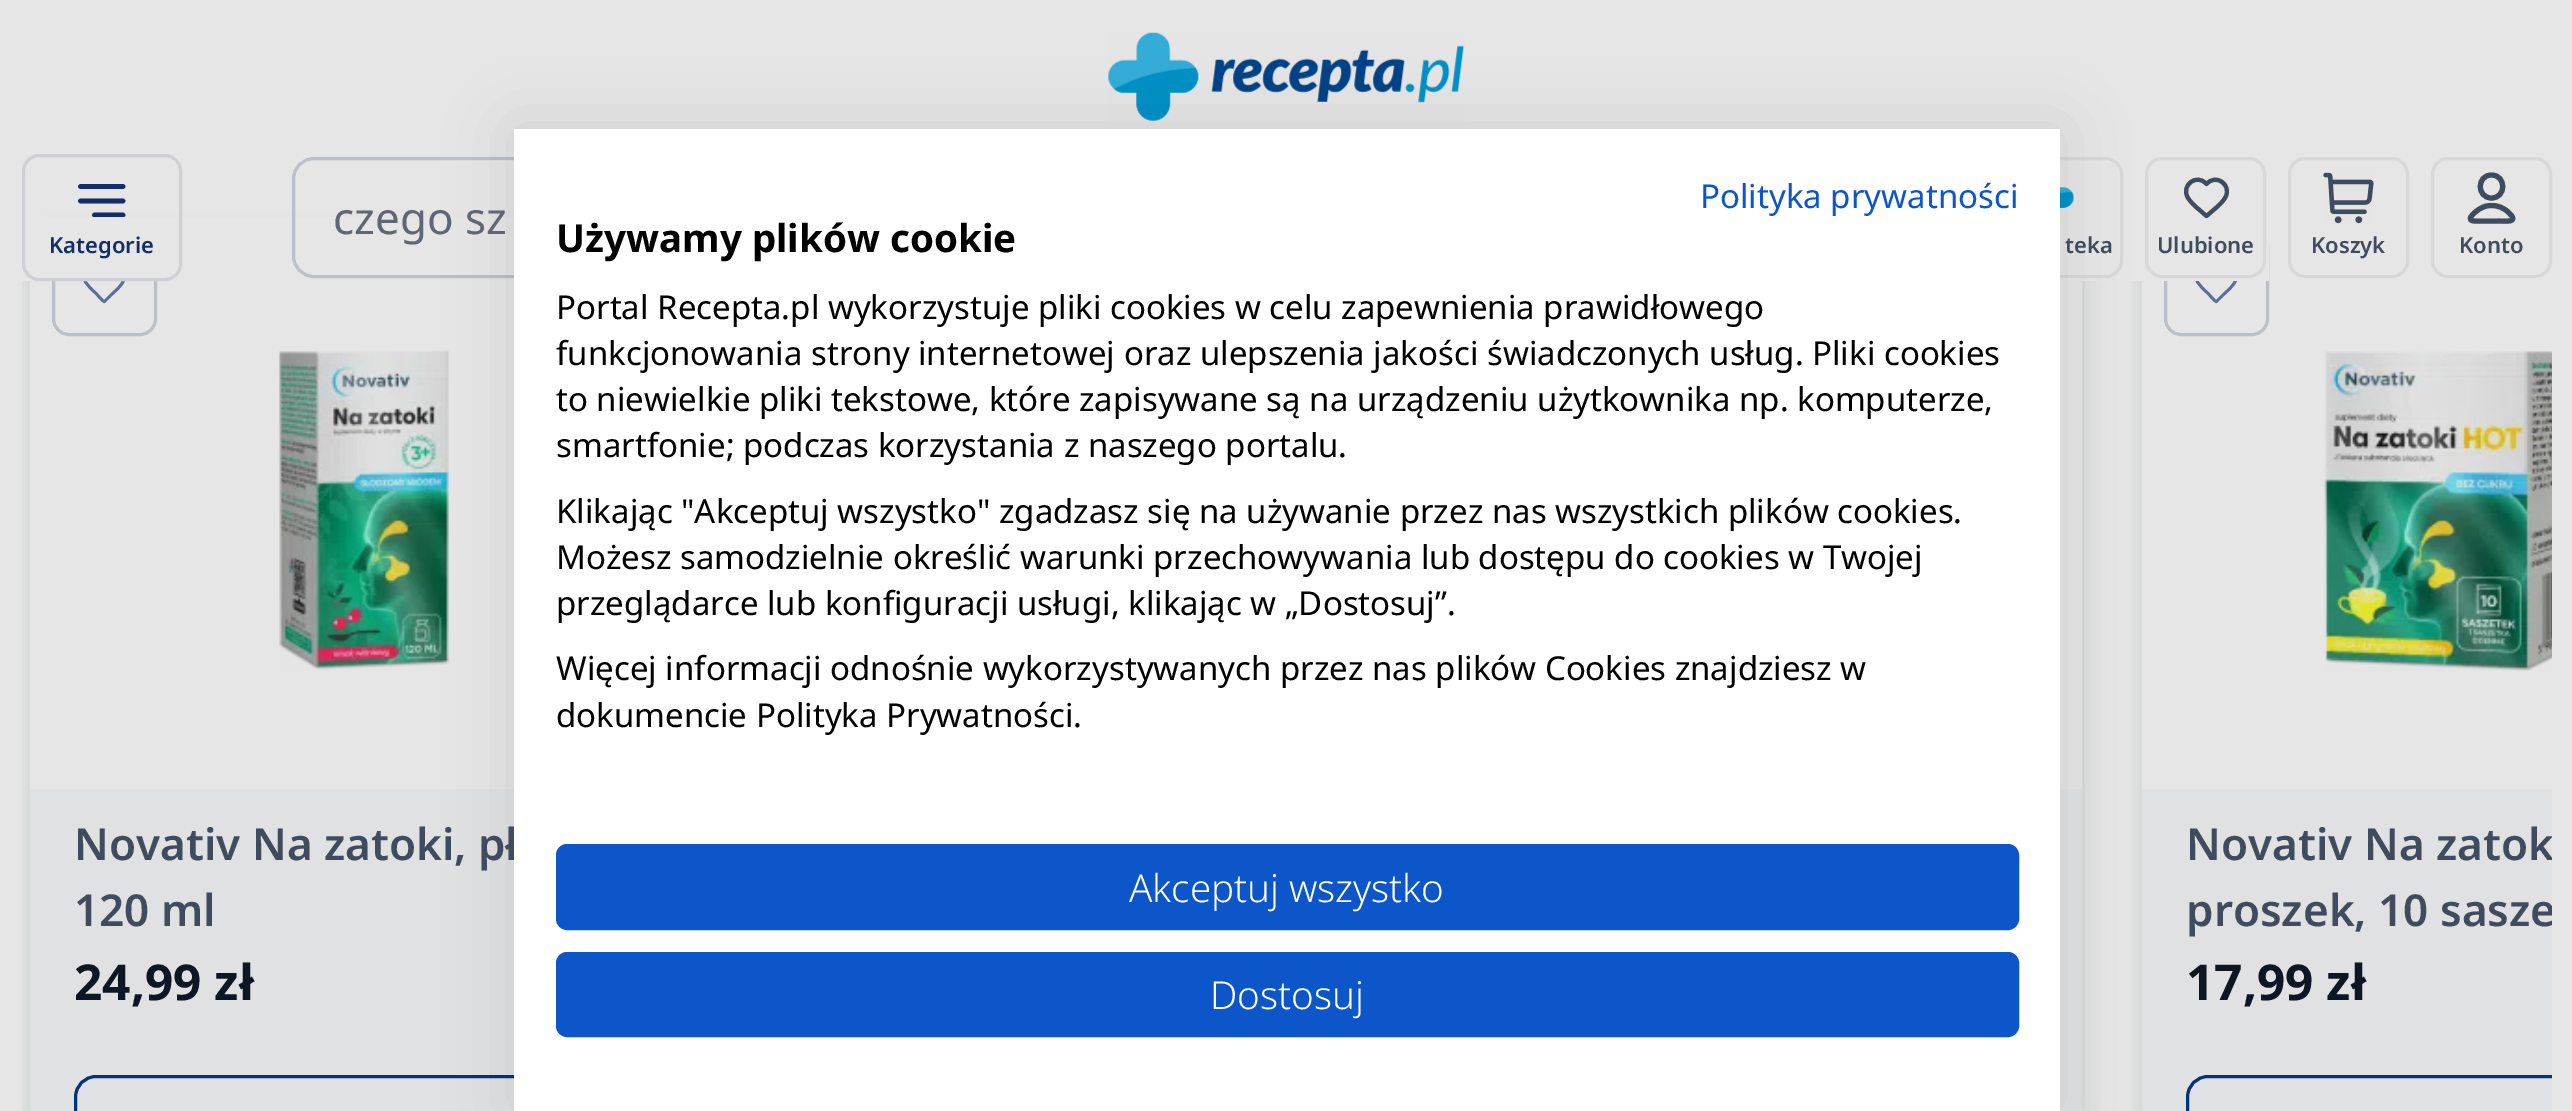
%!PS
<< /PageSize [2572 1111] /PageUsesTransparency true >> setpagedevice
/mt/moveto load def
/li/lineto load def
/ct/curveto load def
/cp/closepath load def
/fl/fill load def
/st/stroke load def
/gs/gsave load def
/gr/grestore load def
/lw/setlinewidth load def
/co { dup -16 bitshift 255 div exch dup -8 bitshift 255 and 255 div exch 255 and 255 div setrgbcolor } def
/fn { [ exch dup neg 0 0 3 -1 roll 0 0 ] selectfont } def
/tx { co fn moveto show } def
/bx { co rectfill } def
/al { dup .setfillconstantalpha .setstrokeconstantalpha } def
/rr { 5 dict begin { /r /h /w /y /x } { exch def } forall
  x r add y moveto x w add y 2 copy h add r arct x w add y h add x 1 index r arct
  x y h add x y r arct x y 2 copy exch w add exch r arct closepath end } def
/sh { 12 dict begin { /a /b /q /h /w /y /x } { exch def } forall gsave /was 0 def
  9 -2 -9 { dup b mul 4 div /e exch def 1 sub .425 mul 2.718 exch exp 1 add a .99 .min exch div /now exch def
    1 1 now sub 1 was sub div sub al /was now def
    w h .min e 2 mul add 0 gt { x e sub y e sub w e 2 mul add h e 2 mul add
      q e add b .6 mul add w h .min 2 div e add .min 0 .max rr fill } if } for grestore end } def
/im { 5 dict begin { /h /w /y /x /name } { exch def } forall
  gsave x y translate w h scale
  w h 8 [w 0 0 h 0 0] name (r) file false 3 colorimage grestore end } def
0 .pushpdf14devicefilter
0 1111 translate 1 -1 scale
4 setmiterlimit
0 0 2572 1111 16#E6E6E6 bx
gs
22 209 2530 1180 rectclip
16#0E1624 co
30 231 644 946 33 11 .12 sh
gr
30 281 484 508 16#E6E6E6 bx
16#BBC0C7 co
3 lw
53.5 232.5 102 102 15.5 rr st
16#5A6D9B co
2.8 lw
113.5 265 mt 117 265 120 266.5 122 269 ct 130.5 279.5 117 289 110.5 295.5 ct 104.5 301.5 li 103 302 97 294 95.5 293 ct 92 289.5 87 285.5 85 281 ct 80.5 269 94.5 259 104.5 269.5 ct 107 267 109.5 265 113.5 265 ct cp st
16#0E1624 co
1438 231 644 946 33 11 .12 sh
gs
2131 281 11 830 rectclip
2142 231 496 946 33 11 .12 sh
gr
16#BBC0C7 co
3 lw
2165.5 232.5 102 102 15.5 rr st
16#5A6D9B co
2.8 lw
2225.5 265 mt 2229 265 2232 266.5 2234 269 ct 2242.5 279.5 2229 289 2222.5 295.5 ct 2216.5 301.5 li 2215 302 2209 294 2207.5 293 ct 2204 289.5 2199 285.5 2197 281 ct 2192.5 269 2206.5 259 2216.5 269.5 ct 2219 267 2221.5 265 2225.5 265 ct cp st
22 217 2247 64 16#E6E6E6 bx
(media/1.raw) 1108 32 357 89 im
16#BBC0C7 co
3 lw
314 158.5 mt 1610.5 158.5 li 1610.5 276.5 li 314 276.5 li 302.5 276.5 293.5 267.5 293.5 256 ct 293.5 179 li 293.5 167.5 302.5 158.5 314 158.5 ct cp st
16#D8D8D8 co
1970.5 158.5 151 118 15.5 rr st
(media/2.raw) 2060 187 14 21 im
2146.5 158.5 118 118 15.5 rr st
(media/4.raw) 279 350 171 320 im
30 789 484 322 16#E0E1E2 bx
16#053279 co
75.5 1076.5 553 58 20.5 rr st
2060 281 22 508 16#E6E6E6 bx
2060 789 22 322 16#E0E1E2 bx
2142 281 1 508 16#E6E6E6 bx
2142 789 410 322 16#E0E1E2 bx
16#000000 co
514 129 1546 982 0 33 .1 sh
16#CED0D4 co
23.5 155.5 157 124 15.5 rr st
gs
77 184 50 33 rectclip
16#132D6B co
4.7 lw
1 setlinecap
1 setlinejoin
80.5 201 mt 123 201 li 80.5 186.5 mt 123 186.5 li 94.5 215 mt 123 215 li st
gr
16#3F4B5E co
4.1 lw
1 setlinecap
1 setlinejoin
2206.5 184 mt 2197 173 2181 185 2187.5 197 ct 2190 202 2195.5 206.5 2199.5 210 ct 2206.5 216 li 2213.5 210 li 2217.5 206.5 2223 202 2225.5 197 ct 2232 185 2216 173 2206.5 184 ct cp st
16#D8D8D8 co
3 lw
0 setlinecap
0 setlinejoin
2289.5 158.5 118 118 15.5 rr st
(media/3.raw) 2323 172 51 52 im
2432.5 158.5 118 118 15.5 rr st
16#3F4B5E co
5.1 lw
1 setlinecap
1 setlinejoin
2491.5 205.5 mt 2487.5 205.5 2483.5 206.5 2480.5 208.5 ct 2477 210 2463 221 2475 221 ct 2497 221 li 2505 221 2521.5 223.5 2507.5 211.5 ct 2503 207.5 2497.5 205.5 2491.5 205.5 ct cp 2491.5 198 mt 2506.5 198 2506.5 175 2491.5 175 ct 2476.5 175 2476.5 198 2491.5 198 ct cp st
(media/5.raw) 2324 351 228 320 im
gs
22 209 2530 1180 rectclip
16#053279 co
3 lw
0 setlinecap
0 setlinejoin
2187.5 1076.5 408 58 20.5 rr st
gr
(czego sz) 333 234 /NotoSans-Regular 44 16#606773 tx
(Kategorie) 49 253 /NotoSans-SemiBold 22 16#132D6B tx
(teka) 2065 253 /NotoSans-SemiBold 22 16#404C5D tx
(Ulubione) 2157 253 /NotoSans-SemiBold 22 16#404C5D tx
(Koszyk) 2311 253 /NotoSans-SemiBold 22 16#404C5D tx
(Konto) 2459 253 /NotoSans-SemiBold 22 16#404C5D tx
(Novativ Na zatoki, pł) 74 860 /NotoSans-SemiBold 44 16#404C5D tx
514 129 1546 982 16#FFFFFF bx
16#0D56C9 co
557.5 953.5 1460 82 9.5 rr gs fl gr
3 lw
0 setlinecap
0 setlinejoin
st
(Dostosuj) 1210 1009 /NotoSans-Light 38.5 16#FFFFFF tx
16#0D56C9 co
557.5 845.5 1460 83 9.5 rr gs fl gr
st
(Akceptuj wszystko) 1129 902 /NotoSans-Light 38.5 16#FFFFFF tx
(dokumencie Polityka Prywatności.) 556 727 /NotoSans-Regular 33 16#000000 tx
(Więcej informacji odnośnie wykorzystywanych przez nas plików Cookies znajdziesz w) 556 680 /NotoSans-Regular 33 16#000000 tx
(przeglądarce lub konfiguracji usługi, klikając w „Dostosuj”.) 556 615 /NotoSans-Regular 33 16#000000 tx
(Możesz samodzielnie określić warunki przechowywania lub dostępu do cookies w Twojej) 556 569 /NotoSans-Regular 33 16#000000 tx
(Klikając "Akceptuj wszystko" zgadzasz się na używanie przez nas wszystkich plików cookies.) 556 523 /NotoSans-Regular 33 16#000000 tx
(smartfonie; podczas korzystania z naszego portalu.) 556 457 /NotoSans-Regular 33 16#000000 tx
(to niewielkie pliki tekstowe, które zapisywane są na urządzeniu użytkownika np. komputerze,) 556 411 /NotoSans-Regular 33 16#000000 tx
(funkcjonowania strony internetowej oraz ulepszenia jakości świadczonych usług. Pliki cookies) 556 365 /NotoSans-Regular 33 16#000000 tx
(Portal Recepta.pl wykorzystuje pliki cookies w celu zapewnienia prawidłowego) 556 319 /NotoSans-Regular 33 16#000000 tx
(Używamy plików cookie) 556 252 /NotoSans-Bold 38.5 16#000000 tx
(Polityka prywatności) 1700 208 /NotoSans-Regular 33 16#0D56C9 tx
(120 ml) 74 926 /NotoSans-SemiBold 44 16#404C5D tx
(24,99 zł) 74 1000 /NotoSans-Bold 49.5 16#0E1624 tx
gs
2186 811 366 132 rectclip
(Novativ Na zatok) 2186 860 /NotoSans-SemiBold 44 16#404C5D tx
(proszek, 10 sasze) 2186 926 /NotoSans-SemiBold 44 16#404C5D tx
gr
(17,99 zł) 2186 1000 /NotoSans-Bold 49.5 16#0E1624 tx
.poppdf14devicefilter showpage
